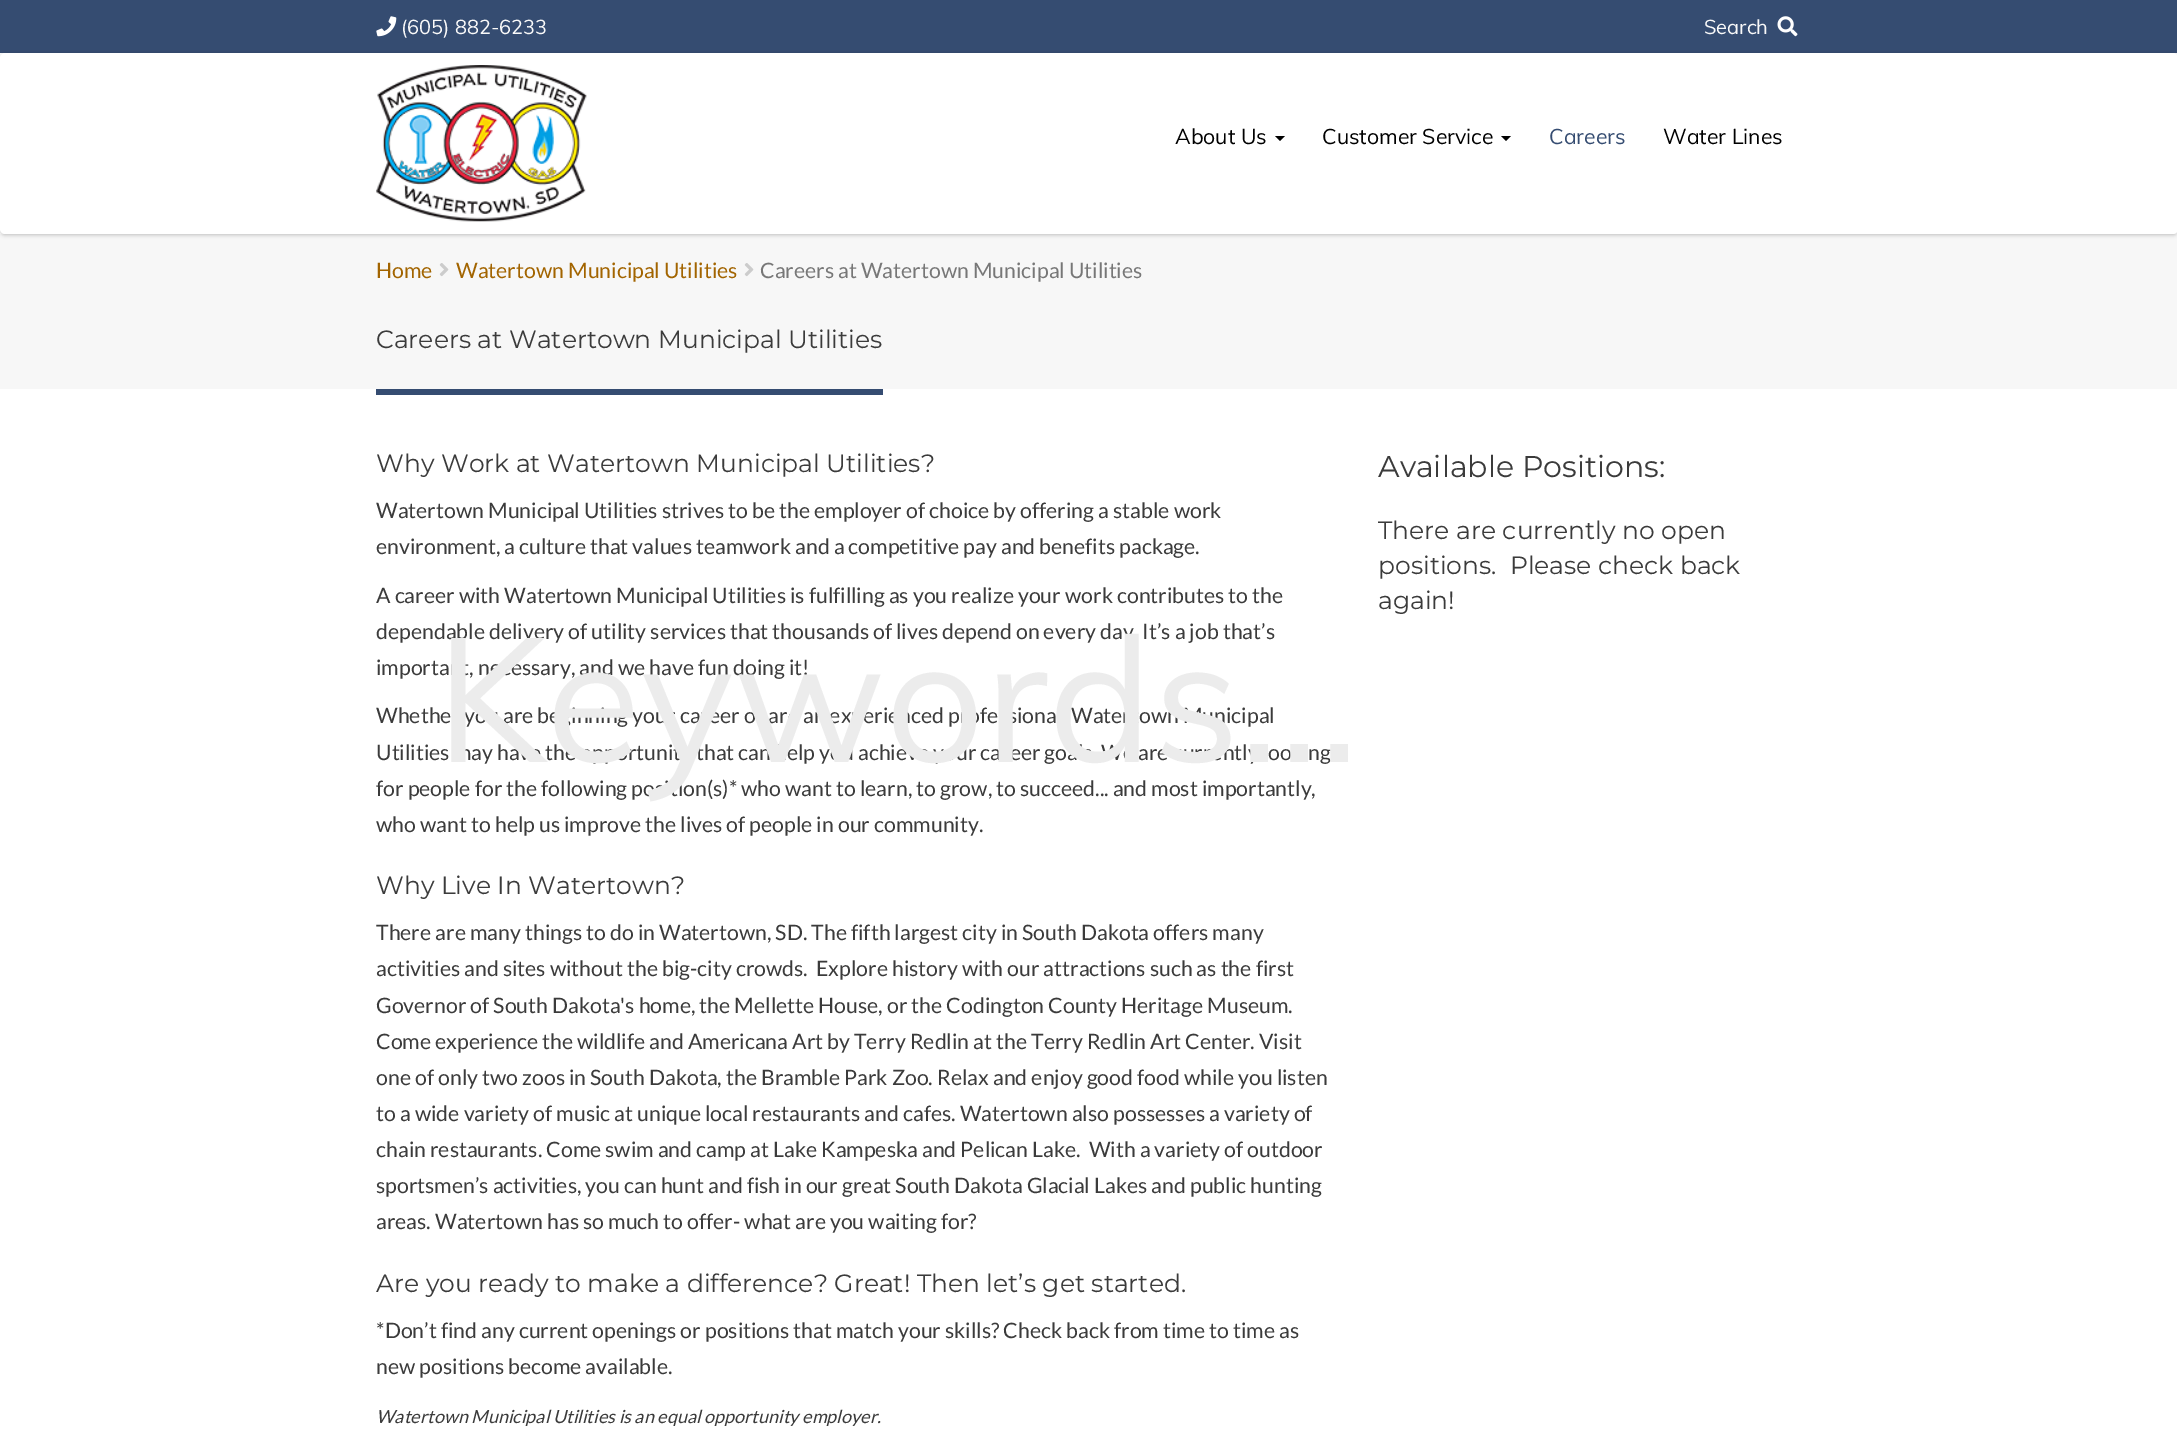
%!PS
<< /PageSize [2177 1441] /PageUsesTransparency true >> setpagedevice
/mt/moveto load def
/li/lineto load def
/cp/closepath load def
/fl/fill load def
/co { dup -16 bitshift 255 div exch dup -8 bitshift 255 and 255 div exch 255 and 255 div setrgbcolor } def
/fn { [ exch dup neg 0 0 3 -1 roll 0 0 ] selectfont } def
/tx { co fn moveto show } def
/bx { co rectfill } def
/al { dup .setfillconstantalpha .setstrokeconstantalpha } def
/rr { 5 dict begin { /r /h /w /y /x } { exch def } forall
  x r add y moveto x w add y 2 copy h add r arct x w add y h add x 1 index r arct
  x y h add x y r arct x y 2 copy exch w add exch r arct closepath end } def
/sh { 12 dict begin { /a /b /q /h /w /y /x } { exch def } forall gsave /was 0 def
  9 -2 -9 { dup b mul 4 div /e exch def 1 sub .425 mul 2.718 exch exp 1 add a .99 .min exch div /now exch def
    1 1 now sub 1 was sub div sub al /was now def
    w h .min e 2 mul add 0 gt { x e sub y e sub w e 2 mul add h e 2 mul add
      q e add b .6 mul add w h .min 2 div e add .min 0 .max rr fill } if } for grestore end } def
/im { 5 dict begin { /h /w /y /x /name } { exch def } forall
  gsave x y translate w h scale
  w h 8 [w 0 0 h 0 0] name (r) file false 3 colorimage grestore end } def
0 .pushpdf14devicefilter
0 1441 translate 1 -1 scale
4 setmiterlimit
0 0 2177 1441 16#FFFFFF bx
0 0 2177 53 16#354C71 bx
(media/1.raw) 376 16 21 21 im
(media/2.raw) 1777 16 21 21 im
0 234 2177 155 16#F7F7F7 bx
16#000000 co
0 54 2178 181 5 2 .23 sh
16#FFFFFF co
0 53 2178 181 5 rr fl
(media/3.raw) 376 65 211 157 im
16#000000 co
1275 136 mt 1285 136 li 1280 141 li cp fl
1501 136 mt 1511 136 li 1506 141 li cp fl
(media/4.raw) 439 263 10 14 im
(media/4.raw) 744 263 10 14 im
376 389 507 6 16#354C71 bx
(\(605\) 882-6233) 401 34 /Muli-Regular 20 16#F9F9F9 tx
(Search) 1704 34 /Muli-Regular 20 16#F9F9F9 tx
(About Us) 1175 144 /Muli-Regular 21.25 16#000000 tx
(Customer Service) 1322 144 /Muli-Regular 21.25 16#000000 tx
(Careers) 1549 144 /Muli-Regular 21.25 16#354C71 tx
(Water Lines) 1663 144 /Muli-Regular 21.25 16#000000 tx
(Home) 376 278 /Lato-Regular 21.25 16#A26400 tx
(Watertown Municipal Utilities) 456 278 /Lato-Regular 21.25 16#A26400 tx
(Careers at Watertown Municipal Utilities) 760 278 /Lato-Regular 21.25 16#777777 tx
(Careers at Watertown Municipal Utilities) 376 348 /Montserrat-Regular 25 16#3B3B3B tx
(Why Work at Watertown Municipal Utilities?) 376 472 /Montserrat-Regular 25 16#3B3B3B tx
(Watertown Municipal Utilities strives to be the employer of choice by offering a stable work) 376 518 /Lato-Regular 21.25 16#3B3B3B tx
(environment, a culture that values teamwork and a competitive pay and benefits package.) 376 554 /Lato-Regular 21.25 16#3B3B3B tx
(A career with Watertown Municipal Utilities is fulfilling as you realize your work contributes to the) 376 603 /Lato-Regular 21.25 16#3B3B3B tx
(dependable delivery of utility services that thousands of lives depend on every day. It’s a job that’s) 376 639 /Lato-Regular 21.25 16#3B3B3B tx
(important, necessary, and we have fun doing it!) 376 675 /Lato-Regular 21.25 16#3B3B3B tx
(Whether you are beginning your career or are an experienced professional, Watertown Municipal) 376 723 /Lato-Regular 21.25 16#3B3B3B tx
(Utilities may have the opportunity that can help you achieve your career goals. We are currently looking) 376 760 /Lato-Regular 21.25 16#3B3B3B tx
(for people for the following position\(s\)* who want to learn, to grow, to succeed... and most importantly,) 376 796 /Lato-Regular 21.25 16#3B3B3B tx
(Keywords...) 436 762 /Muli-Regular 174.25 16#ECECEC tx
(who want to help us improve the lives of people in our community.) 376 832 /Lato-Regular 21.25 16#3B3B3B tx
(Why Live In Watertown?) 376 894 /Montserrat-Regular 25 16#3B3B3B tx
(There are many things to do in Watertown, SD. The fifth largest city in South Dakota offers many) 376 940 /Lato-Regular 21.25 16#3B3B3B tx
(activities and sites without the big-city crowds.  Explore history with our attractions such as the first) 376 976 /Lato-Regular 21.25 16#3B3B3B tx
(Governor of South Dakota's home, the Mellette House, or the Codington County Heritage Museum.) 376 1013 /Lato-Regular 21.25 16#3B3B3B tx
(Come experience the wildlife and Americana Art by Terry Redlin at the Terry Redlin Art Center. Visit) 376 1049 /Lato-Regular 21.25 16#3B3B3B tx
(one of only two zoos in South Dakota, the Bramble Park Zoo. Relax and enjoy good food while you listen) 376 1085 /Lato-Regular 21.25 16#3B3B3B tx
(to a wide variety of music at unique local restaurants and cafes. Watertown also possesses a variety of) 376 1121 /Lato-Regular 21.25 16#3B3B3B tx
(chain restaurants. Come swim and camp at Lake Kampeska and Pelican Lake.  With a variety of outdoor) 376 1157 /Lato-Regular 21.25 16#3B3B3B tx
(sportsmen’s activities, you can hunt and fish in our great South Dakota Glacial Lakes and public hunting) 376 1193 /Lato-Regular 21.25 16#3B3B3B tx
(areas. Watertown has so much to offer- what are you waiting for?) 376 1229 /Lato-Regular 21.25 16#3B3B3B tx
(Are you ready to make a difference? Great! Then let’s get started.) 376 1292 /Montserrat-Regular 25 16#3B3B3B tx
(*Don’t find any current openings or positions that match your skills? Check back from time to time as) 376 1338 /Lato-Regular 21.25 16#3B3B3B tx
(new positions become available.) 376 1374 /Lato-Regular 21.25 16#3B3B3B tx
(Watertown Municipal Utilities is an equal opportunity employer.) 376 1423 /Lato-Italic 18.05 16#3B3B3B tx
(Available Positions:) 1378 477 /Montserrat-Regular 30 16#3B3B3B tx
(There are currently no open) 1378 539 /Montserrat-Regular 25 16#3B3B3B tx
(positions.  Please check back) 1378 574 /Montserrat-Regular 25 16#3B3B3B tx
(again!) 1378 609 /Montserrat-Regular 25 16#3B3B3B tx
.poppdf14devicefilter showpage
